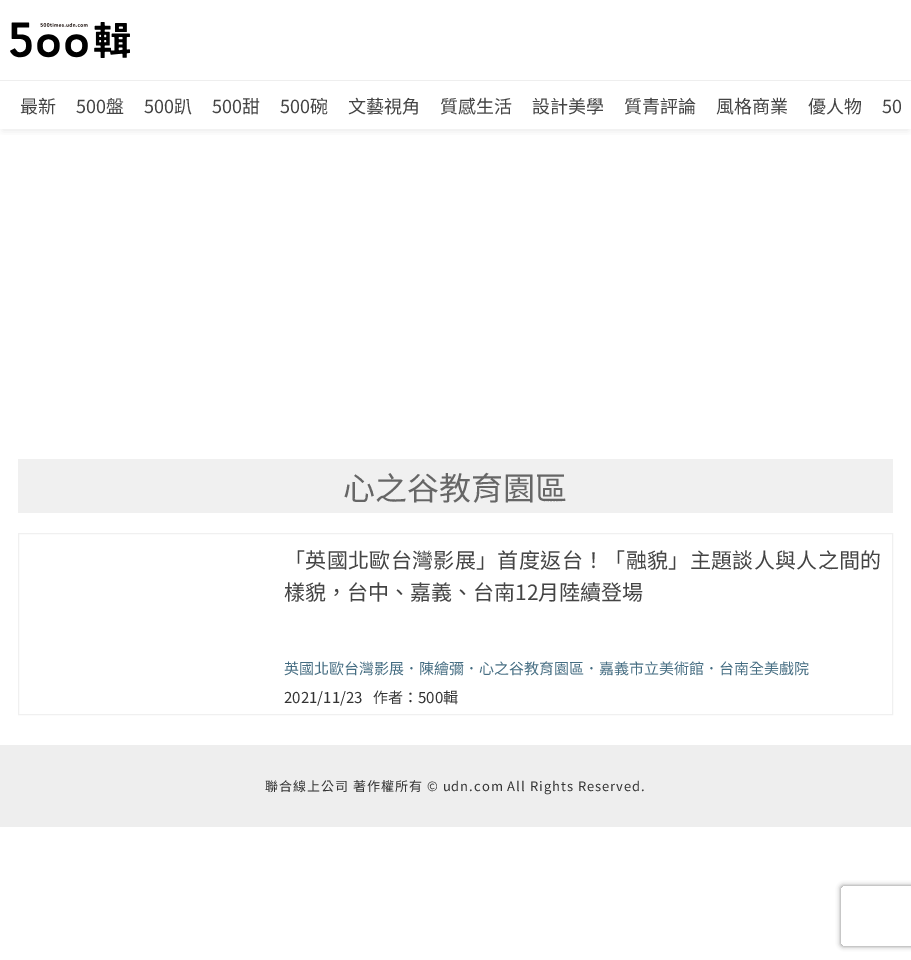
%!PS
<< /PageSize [911 960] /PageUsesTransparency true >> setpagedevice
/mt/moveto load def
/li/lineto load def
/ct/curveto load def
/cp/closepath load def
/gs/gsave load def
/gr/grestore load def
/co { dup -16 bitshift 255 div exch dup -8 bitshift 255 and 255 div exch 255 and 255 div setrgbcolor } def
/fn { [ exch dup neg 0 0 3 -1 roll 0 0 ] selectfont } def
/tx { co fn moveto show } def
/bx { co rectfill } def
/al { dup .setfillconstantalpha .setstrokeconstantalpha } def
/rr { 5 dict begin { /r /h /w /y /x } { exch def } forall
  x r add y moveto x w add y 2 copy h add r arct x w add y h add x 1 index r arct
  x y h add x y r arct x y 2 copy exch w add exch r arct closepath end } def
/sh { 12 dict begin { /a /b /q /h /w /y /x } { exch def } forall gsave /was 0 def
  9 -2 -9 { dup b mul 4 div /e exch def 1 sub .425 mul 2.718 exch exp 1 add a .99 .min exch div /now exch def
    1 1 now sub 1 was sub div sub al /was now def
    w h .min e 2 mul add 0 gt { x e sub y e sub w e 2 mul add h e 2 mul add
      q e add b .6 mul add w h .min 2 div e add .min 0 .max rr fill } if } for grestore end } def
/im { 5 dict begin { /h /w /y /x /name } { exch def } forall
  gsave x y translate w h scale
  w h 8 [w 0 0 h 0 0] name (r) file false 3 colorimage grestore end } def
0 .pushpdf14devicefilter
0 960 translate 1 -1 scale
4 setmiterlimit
0 0 911 960 16#FFFFFF bx
0 80 911 1 16#EEEEEE bx
(media/1.raw) 10 22 120 36 im
gs
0 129 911 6 rectclip
16#888888 co
3 88 905 42 0 4 .2 sh
gr
18 459 875 54 16#F0F0F0 bx
18.5 533.5 874 181 rectstroke
0 745 911 82 16#EEEEEE bx
gs
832 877 mt 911 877 li 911 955 li 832 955 li cp 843 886 mt 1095 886 li 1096 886 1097 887 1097 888 ct 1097 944 li 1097 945 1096 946 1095 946 ct 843 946 li 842 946 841 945 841 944 ct 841 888 li 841 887 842 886 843 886 ct cp eoclip newpath
16#808080 co
841 886 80 60 2 2.5 1 sh
gr
(最新) 20 113 /NotoSansTC-Regular 18 16#444444 tx
(500盤) 76 113 /NotoSansTC-Regular 18 16#444444 tx
(500趴) 144 113 /NotoSansTC-Regular 18 16#444444 tx
(500甜) 212 113 /NotoSansTC-Regular 18 16#444444 tx
(500碗) 280 113 /NotoSansTC-Regular 18 16#444444 tx
(文藝視角) 348 113 /NotoSansTC-Regular 18 16#444444 tx
(質感生活) 440 113 /NotoSansTC-Regular 18 16#444444 tx
(設計美學) 532 113 /NotoSansTC-Regular 18 16#444444 tx
(質青評論) 624 113 /NotoSansTC-Regular 18 16#444444 tx
(風格商業) 716 113 /NotoSansTC-Regular 18 16#444444 tx
(優人物) 808 113 /NotoSansTC-Regular 18 16#444444 tx
(50) 882 113 /NotoSansTC-Regular 18 16#444444 tx
(心之谷教育園區) 343 500 /NotoSansTC-Regular 32 16#666666 tx
/NotoSansTC-Regular 21 fn
16#444444 co
284 568 mt .35 0 (「英國北歐台灣影展」首度返台！「融貌」主題談人與人之間的) ashow
(樣貌，台中、嘉義、台南12月陸續登場) 284 600 /NotoSansTC-Regular 21 16#444444 tx
(英國北歐台灣影展．陳繪彌．心之谷教育園區．嘉義市立美術館．台南全美戲院) 284 674 /NotoSansTC-Regular 15 16#456D82 tx
(2021/11/23) 284 703 /NotoSansTC-Regular 15 16#333333 tx
gs
373 689 85 15 rectclip
(作者：) 373 703 /NotoSansTC-Regular 15 16#333333 tx
gr
(500輯) 418 703 /NotoSansTC-Regular 15 16#333333 tx
/NotoSansTC-Regular 13 fn
265 791 mt 1 0 (聯合線上公司 著作權所有 © udn.com All Rights Reserved.) ashow
.poppdf14devicefilter showpage
